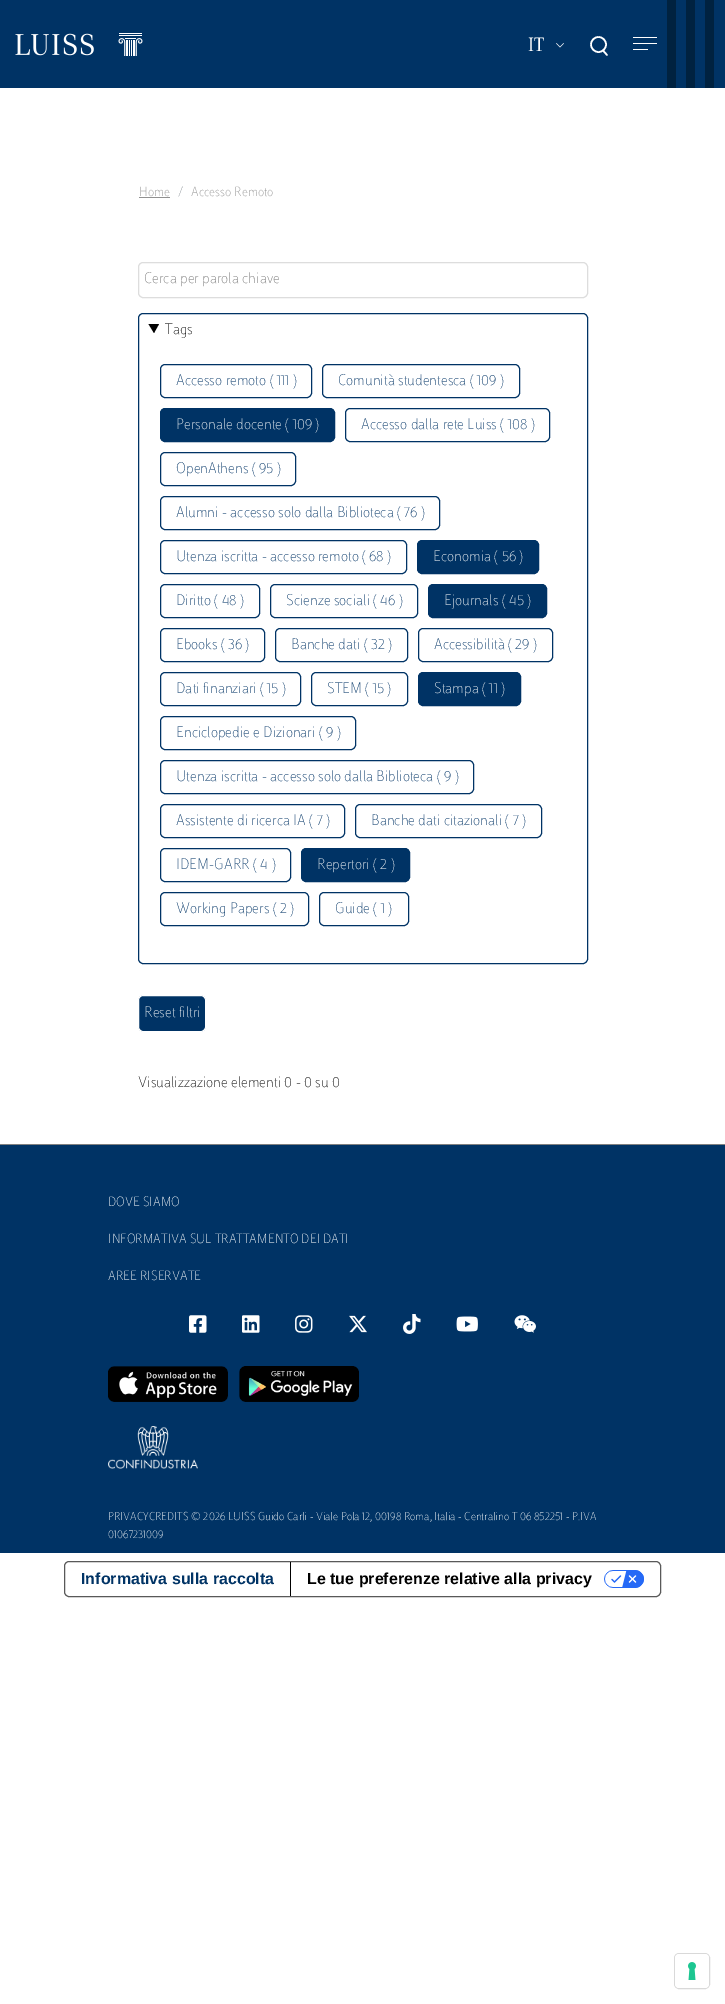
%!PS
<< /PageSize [725 2004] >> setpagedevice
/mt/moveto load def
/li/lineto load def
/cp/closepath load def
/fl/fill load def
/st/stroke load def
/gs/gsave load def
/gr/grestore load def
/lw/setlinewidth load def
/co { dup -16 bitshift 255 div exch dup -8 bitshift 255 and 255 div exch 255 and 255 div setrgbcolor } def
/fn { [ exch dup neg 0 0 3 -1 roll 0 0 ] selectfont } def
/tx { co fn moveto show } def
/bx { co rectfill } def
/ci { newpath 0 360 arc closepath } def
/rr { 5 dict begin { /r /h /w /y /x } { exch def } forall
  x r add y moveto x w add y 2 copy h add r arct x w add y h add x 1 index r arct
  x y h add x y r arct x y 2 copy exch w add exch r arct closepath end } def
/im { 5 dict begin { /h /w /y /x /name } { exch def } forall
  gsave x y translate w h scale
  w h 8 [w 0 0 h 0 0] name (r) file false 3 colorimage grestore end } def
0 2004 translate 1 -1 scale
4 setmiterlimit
0 0 725 2004 16#FFFFFF bx
0 0 725 88 16#003365 bx
(media/1.raw) 15 33 128 23 im
(media/2.raw) 556 43 8 5 im
16#FFFFFF co
1.6 lw
598.5 44.5 7.5 ci st
1 setlinecap
1 setlinejoin
607 55 mt 603 50.5 li st
633 37 24 1 .5 rr fl
633 43 24 1 .5 rr fl
633 49 15 1 .5 rr fl
667 0 9 88 16#002240 bx
686 0 9 88 16#002240 bx
705 0 9 88 16#002240 bx
139 197 31 1 16#909090 bx
16#DDDDDD co
1 lw
0 setlinecap
0 setlinejoin
138.5 262.5 449 35 4.5 rr st
16#003365 co
138.5 313.5 449 650 4.5 rr st
16#010101 co
148.5 324 mt 159 324 li 154 333 li cp fl
16#003365 co
160.5 364.5 151 33 4.5 rr st
322.5 364.5 197 33 4.5 rr st
160.5 408.5 174 33 4.5 rr gs fl gr
st
345.5 408.5 204 33 4.5 rr st
160.5 452.5 135 33 4.5 rr st
160.5 496.5 279 33 4.5 rr st
160.5 540.5 246 33 4.5 rr st
417.5 540.5 121 33 4.5 rr gs fl gr
st
160.5 584.5 99 33 4.5 rr st
270.5 584.5 147 33 4.5 rr st
428.5 584.5 118 33 4.5 rr gs fl gr
st
160.5 628.5 104 33 4.5 rr st
275.5 628.5 132 33 4.5 rr st
418.5 628.5 134 33 4.5 rr st
160.5 672.5 140 33 4.5 rr st
311.5 672.5 96 33 4.5 rr st
418.5 672.5 102 33 4.5 rr gs fl gr
st
160.5 716.5 195 33 4.5 rr st
160.5 760.5 313 33 4.5 rr st
160.5 804.5 184 33 4.5 rr st
355.5 804.5 186 33 4.5 rr st
160.5 848.5 130 33 4.5 rr st
301.5 848.5 108 33 4.5 rr gs fl gr
st
160.5 892.5 148 33 4.5 rr st
319.5 892.5 89 33 4.5 rr st
138.5 995.5 67 36 4.5 rr gs fl gr
16#FFFFFF co
st
0 1145 725 408 16#003365 bx
0 1144 725 1 16#808080 bx
(media/3.raw) 189 1315 18 18 im
(media/4.raw) 242 1315 18 18 im
(media/5.raw) 295 1315 18 18 im
(media/6.raw) 349 1315 18 18 im
(media/7.raw) 403 1314 18 20 im
(media/8.raw) 456 1316 22 16 im
(media/9.raw) 514 1315 22 18 im
(media/10.raw) 108 1366 120 36 im
(media/11.raw) 239 1366 120 36 im
(media/12.raw) 108 1426 90 43 im
16#595959 co
64.5 1561.5 596 35 4.5 rr st
290 1562 1 34 16#000000 bx
(media/13.raw) 604 1570 40 18 im
16#D9D9D9 co
674.5 1953.5 35 35 4.5 rr st
16#FFFFFF co
675 1954 34 34 4 rr fl
(media/14.raw) 688 1962 8 18 im
gs
528 31 16 30 rectclip
(IT) 528 51 /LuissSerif-Regular 20 16#FFFFFF tx
gr
(Home) 139 196 /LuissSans-Thin 14 16#909090 tx
(/) 178 196 /LuissSans-Thin 14 16#6C757D tx
(Accesso Remoto) 191 196 /LuissSans-Thin 14 16#909090 tx
(Cerca per parola chiave) 144 283 /LuissSans-Thin 16 16#757575 tx
(Tags) 165 334 /LuissSans-Thin 16 16#000000 tx
(Accesso remoto \( 111 \)) 176 385 /LuissSans-Thin 16 16#003365 tx
(Comunità studentesca \( 109 \)) 338 385 /LuissSans-Thin 16 16#003365 tx
(Personale docente \( 109 \)) 176 429 /LuissSans-Thin 16 16#FFFFFF tx
(Accesso dalla rete Luiss \( 108 \)) 361 429 /LuissSans-Thin 16 16#003365 tx
(OpenAthens \( 95 \)) 176 473 /LuissSans-Thin 16 16#003365 tx
(Alumni - accesso solo dalla Biblioteca \( 76 \)) 176 517 /LuissSans-Thin 16 16#003365 tx
(Utenza iscritta - accesso remoto \( 68 \)) 176 561 /LuissSans-Thin 16 16#003365 tx
(Economia \( 56 \)) 433 561 /LuissSans-Thin 16 16#FFFFFF tx
(Diritto \( 48 \)) 176 605 /LuissSans-Thin 16 16#003365 tx
(Scienze sociali \( 46 \)) 286 605 /LuissSans-Thin 16 16#003365 tx
(Ejournals \( 45 \)) 444 605 /LuissSans-Thin 16 16#FFFFFF tx
(Ebooks \( 36 \)) 176 649 /LuissSans-Thin 16 16#003365 tx
(Banche dati \( 32 \)) 291 649 /LuissSans-Thin 16 16#003365 tx
(Accessibilità \( 29 \)) 434 649 /LuissSans-Thin 16 16#003365 tx
(Dati finanziari \( 15 \)) 176 693 /LuissSans-Thin 16 16#003365 tx
(STEM \( 15 \)) 327 693 /LuissSans-Thin 16 16#003365 tx
(Stampa \( 11 \)) 434 693 /LuissSans-Thin 16 16#FFFFFF tx
(Enciclopedie e Dizionari \( 9 \)) 176 737 /LuissSans-Thin 16 16#003365 tx
(Utenza iscritta - accesso solo dalla Biblioteca \( 9 \)) 176 781 /LuissSans-Thin 16 16#003365 tx
(Assistente di ricerca IA \( 7 \)) 176 825 /LuissSans-Thin 16 16#003365 tx
(Banche dati citazionali \( 7 \)) 371 825 /LuissSans-Thin 16 16#003365 tx
(IDEM-GARR \( 4 \)) 176 869 /LuissSans-Thin 16 16#003365 tx
(Repertori \( 2 \)) 317 869 /LuissSans-Thin 16 16#FFFFFF tx
(Working Papers \( 2 \)) 176 913 /LuissSans-Thin 16 16#003365 tx
(Guide \( 1 \)) 335 913 /LuissSans-Thin 16 16#003365 tx
(Reset filtri) 144 1017 /LuissSans-Thin 16 16#FFFFFF tx
(Visualizzazione elementi 0 - 0 su 0) 138 1087 /LuissSans-Thin 16 16#000000 tx
(DOVE SIAMO) 108 1206 /LuissSans-Thin 14 16#FFFFFF tx
(INFORMATIVA SUL TRATTAMENTO DEI DATI) 108 1243 /LuissSans-Thin 14 16#FFFFFF tx
(AREE RISERVATE) 108 1280 /LuissSans-Thin 14 16#FFFFFF tx
(PRIVACYCREDITS © 2026 LUISS Guido Carli - Viale Pola 12, 00198 Roma, Italia - Centralino T 06 852251 - P.IVA) 108 1520 /LuissSans-Thin 12 16#FFFFFF tx
(01067231009) 108 1538 /LuissSans-Thin 12 16#FFFFFF tx
(Informativa sulla raccolta) 81 1584 /LiberationSans-Bold 16 16#003365 tx
(Le tue preferenze relative alla privacy) 307 1584 /LiberationSans-Bold 16 16#000000 tx
showpage
